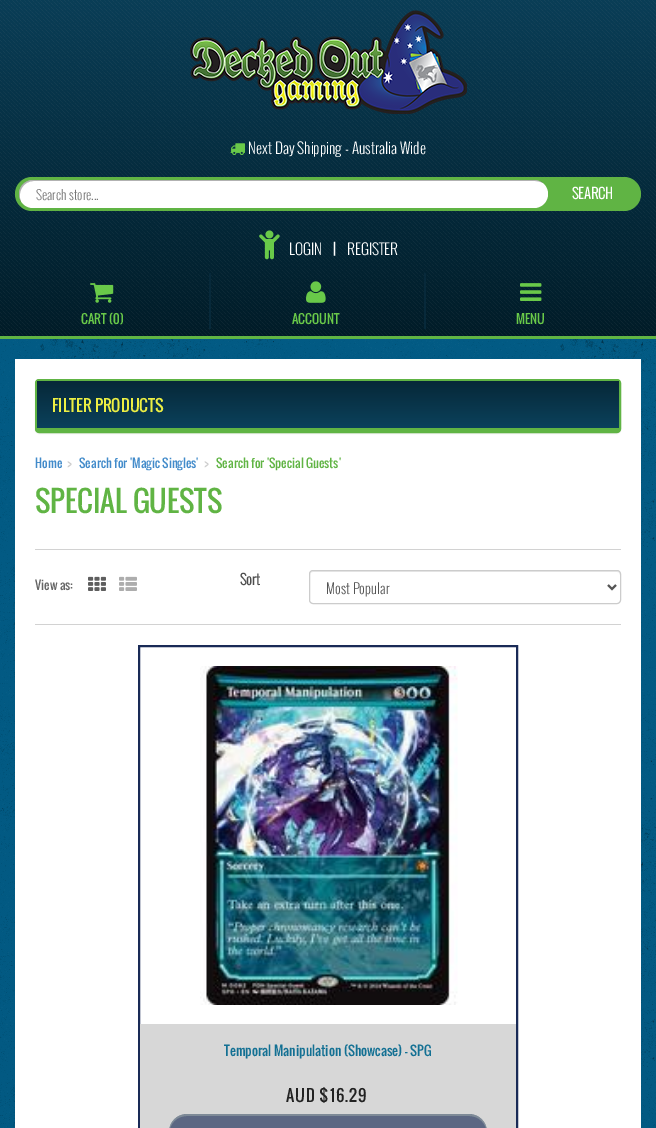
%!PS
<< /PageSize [656 1128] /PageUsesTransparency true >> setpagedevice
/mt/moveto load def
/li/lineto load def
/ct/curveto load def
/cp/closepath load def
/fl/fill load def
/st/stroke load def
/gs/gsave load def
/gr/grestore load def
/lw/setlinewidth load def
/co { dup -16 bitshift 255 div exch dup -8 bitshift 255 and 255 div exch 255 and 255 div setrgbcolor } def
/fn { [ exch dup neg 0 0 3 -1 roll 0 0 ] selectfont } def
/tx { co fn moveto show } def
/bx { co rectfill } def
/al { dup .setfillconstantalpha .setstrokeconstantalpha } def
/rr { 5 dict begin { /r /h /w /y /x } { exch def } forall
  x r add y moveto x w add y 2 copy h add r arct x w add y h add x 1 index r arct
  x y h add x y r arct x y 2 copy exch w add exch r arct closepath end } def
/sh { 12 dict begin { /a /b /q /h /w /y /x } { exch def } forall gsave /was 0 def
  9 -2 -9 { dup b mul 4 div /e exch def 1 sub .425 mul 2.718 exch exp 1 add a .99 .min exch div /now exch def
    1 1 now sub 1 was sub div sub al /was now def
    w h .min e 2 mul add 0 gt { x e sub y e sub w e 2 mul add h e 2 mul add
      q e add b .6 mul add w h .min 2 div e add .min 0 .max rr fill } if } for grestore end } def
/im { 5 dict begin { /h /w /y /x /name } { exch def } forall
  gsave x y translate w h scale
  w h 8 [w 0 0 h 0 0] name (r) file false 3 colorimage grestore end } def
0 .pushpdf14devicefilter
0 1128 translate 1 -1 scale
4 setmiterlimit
0 0 656 1128 16#FFFFFF bx
(media/1.raw) 0 339 656 789 im
(media/2.raw) 0 0 656 336 im
0 336 656 3 16#60B444 bx
(media/3.raw) 190 10 277 104 im
(media/4.raw) 230 143 15 12 im
15 177 626 34 17 rr fl
16#FFFFFF co
19 180 529 28 14 rr fl
0.3 al
16#000000 co
34 181 mt 535 181 li 538 181 541 182 543 183 ct 541 181 537 180 534 180 ct 33 180 li 25 180 19 186 19 194 ct 19 197 20 200 21 202 ct 17 192 23 181 34 181 ct cp fl
1 al
(media/5.raw) 259 230 21 30 im
(media/6.raw) 90 283 24 20 im
209 273 2 56 16#07293A bx
(media/7.raw) 306 281 20 22 im
424 273 2 56 16#07293A bx
(media/8.raw) 520 283 22 18 im
15 359 626 769 16#FFFFFF bx
16#000000 co
35 380 586 54 4 .5 .05 sh
16#FFFFFF co
36 380 584 52 3 rr gs fl gr
16#60B444 co
2 lw
st
gs 40 381 mt 616 381 li 617.5 381 619 382.5 619 384 ct 619 431 li 37 431 li 37 384 li 37 382.5 38.5 381 40 381 ct cp clip newpath
<< /ShadingType 2 /ColorSpace /DeviceRGB /Coords [328 381 328 431] /Extend [true true] /Function << /FunctionType 2 /Domain [0 1] /C0 [.027 .157 .22] /C1 [.043 .263 .369] /N 1 >> >> shfill gr
37 428 582 3 16#60B444 bx
35 549 586 1 16#D2D2D2 bx
(media/9.raw) 88 576 18 15 im
(media/10.raw) 119 576 18 15 im
16#ECECEC co
313 572 mt 617 572 li 619 572 620 573 620 575 ct 619 572 li 618 571 li 313 571 li 311 571 310 573 310 575 ct 310 573 311 572 313 572 ct cp fl
16#CCCCCC co
1 lw
309.5 570.5 311 33 3.5 rr st
16#555555 co
2 lw
608 585 mt 612 589 li 616 585 li st
35 624 586 1 16#D2D2D2 bx
16#192A56 co
139 646 378 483 rectstroke
(media/11.raw) 200 666 258 339 im
140 1024 376 104 16#D7D7D7 bx
16#5C6783 co
169 1114 318 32 18 rr fl
0.3 al
16#CBDCC5 co
187 1116 mt 469 1116 li 479 1116 486 1123 487 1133 ct 488 1123 479 1114 469 1114 ct 187 1114 li 177 1114 168 1123 169 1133 ct 170 1123 177 1116 187 1116 ct cp fl
1 al
(Next Day Shipping - Australia Wide) 248 154 /Oswald-Light 15 16#FFFFFF tx
(Search store...) 36 200 /Oswald-Light 13 16#777777 tx
(SEARCH) 572 199 /Oswald-Bold 14 16#FFFFFF tx
(LOGIN) 289 255 /Oswald-Light 15 16#FFFFFF tx
(|) 333 255 /Oswald-Regular 14 16#FFFFFF tx
(REGISTER) 347 255 /Oswald-Light 15 16#FFFFFF tx
(CART \(0\)) 81 324 /Oswald-Regular 12.5 16#69C949 tx
(ACCOUNT) 292 324 /Oswald-Regular 12.5 16#69C949 tx
(MENU) 516 324 /Oswald-Regular 12.5 16#69C949 tx
(FILTER PRODUCTS) 52 412 /Oswald-Regular 16 16#EDEF43 tx
(Home) 35 468 /Oswald-Regular 12 16#428BCA tx
(>) 67 468 /Oswald-Regular 12 16#CCCCCC tx
(Search for 'Magic Singles') 79 468 /Oswald-Regular 12 16#428BCA tx
(>) 204 468 /Oswald-Regular 12 16#CCCCCC tx
(Search for 'Special Guests') 216 468 /Oswald-Regular 12 16#60B444 tx
(SPECIAL GUESTS) 35 513 /Oswald-Regular 28.75 16#60B444 tx
(View as:) 35 590 /Oswald-Regular 12 16#666666 tx
(Sort) 240 585 /Oswald-Bold 14 16#4D4D4D tx
(Most Popular) 326 594 /Oswald-Light 14 16#555555 tx
(Temporal Manipulation \(Showcase\) - SPG) 224 1056 /Oswald-Regular 13 16#137093 tx
/Oswald-Regular 16 fn
16#222222 co
286 1102 mt 1 0 (AUD) ashow
319 1102 mt 1 0 ($16.29) ashow
.poppdf14devicefilter showpage
